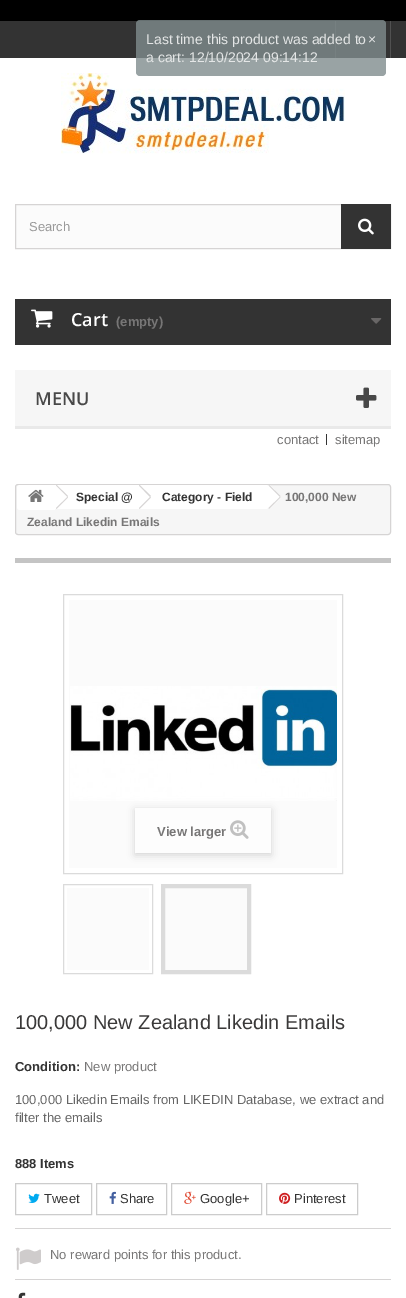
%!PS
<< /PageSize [406 1298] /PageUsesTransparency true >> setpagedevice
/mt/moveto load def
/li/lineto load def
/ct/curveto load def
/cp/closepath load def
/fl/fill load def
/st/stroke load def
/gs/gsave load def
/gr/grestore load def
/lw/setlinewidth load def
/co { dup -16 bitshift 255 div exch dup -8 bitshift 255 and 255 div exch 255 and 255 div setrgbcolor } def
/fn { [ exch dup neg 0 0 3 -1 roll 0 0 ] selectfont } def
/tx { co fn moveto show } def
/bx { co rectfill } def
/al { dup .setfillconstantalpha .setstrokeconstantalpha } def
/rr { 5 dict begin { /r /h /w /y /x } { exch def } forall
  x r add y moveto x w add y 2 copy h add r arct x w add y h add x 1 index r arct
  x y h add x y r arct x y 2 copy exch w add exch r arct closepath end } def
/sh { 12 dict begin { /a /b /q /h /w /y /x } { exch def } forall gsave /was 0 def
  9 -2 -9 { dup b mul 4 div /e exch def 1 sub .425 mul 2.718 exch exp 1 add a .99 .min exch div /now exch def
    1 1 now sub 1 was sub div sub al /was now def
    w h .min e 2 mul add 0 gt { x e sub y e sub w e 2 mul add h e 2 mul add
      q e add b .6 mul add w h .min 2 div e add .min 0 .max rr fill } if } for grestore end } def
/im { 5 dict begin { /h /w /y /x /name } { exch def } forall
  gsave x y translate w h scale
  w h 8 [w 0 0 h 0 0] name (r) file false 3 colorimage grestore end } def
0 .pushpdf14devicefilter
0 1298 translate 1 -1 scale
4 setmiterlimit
0 0 406 1298 16#FFFFFF bx
0 0 406 21 16#000000 bx
0 21 406 37 16#333333 bx
335 21 1 37 16#515151 bx
(media/1.raw) 61 73 284 81 im
0.8 al
16#7F8C8D co
136 20 250 56 4 rr fl
1 al
390 21 1 37 16#515151 bx
16 205 325 43 16#FBFBFB bx
16#D6D4D4 co
15.5 204.5 375 44 rectstroke
341 204 50 45 16#333333 bx
(media/2.raw) 358 218 16 17 im
15 299 376 46 16#333333 bx
(media/3.raw) 31 309 22 19 im
(media/4.raw) 371 318 11 6 im
15 370 376 56 16#F6F6F6 bx
15 426 376 3 16#E9E9E9 bx
(media/5.raw) 356 387 21 21 im
326 434 1 11 16#333333 bx
16#F6F6F6 co
15.5 484.5 375 50 2.5 rr gs fl gr
16#D6D4D4 co
st
16#FFFFFF co
20 485 mt 55 485 li 55 510 li 20 510 li 18.5 510 17 508.5 17 507 ct 17 488 li 17 486.5 18.5 485 20 485 ct cp fl
(media/6.raw) 28 489 16 13 im
55 485 85 24 16#FFFFFF bx
16#D6D4D4 co
56.5 485 mt 68 496 li 67.5 497 li 56 485.5 li cp 67.5 497 mt 68 497.5 li 56.5 509 li 56 508 li cp fl
16#FFFFFF co
150 485.5 mt 160 495.5 li 161 496 161 497.5 160 498.5 ct 150 508 li 149.5 509 148 509 147.5 508 ct 137.5 498.5 li 136.5 497.5 136.5 496 137.5 495.5 ct 147.5 485.5 li 148 485 149.5 485 150 485.5 ct cp fl
140 485 127 24 16#FFFFFF bx
16#D6D4D4 co
139.5 485 mt 151 496 li 150 497 li 139 485.5 li cp 150 497 mt 151 497.5 li 139.5 509 li 139 508 li cp fl
16#FFFFFF co
270 485.5 mt 280 495.5 li 280.5 496 280.5 497.5 280 498.5 ct 270 508 li 269 509 268 509 267 508 ct 257 498.5 li 256.5 497.5 256.5 496 257 495.5 ct 267 485.5 li 268 485 269 485 270 485.5 ct cp fl
16#D6D4D4 co
269 485 mt 280.5 496 li 280 497 li 268.5 485.5 li cp 280 497 mt 280.5 497.5 li 269 509 li 268.5 508 li cp fl
15 558 376 5 16#C4C4C4 bx
16#DBDBDB co
63.5 594.5 279 279 rectstroke
69 600 268 268 16#FBFBFB bx
(media/7.raw) 70 686 267 115 im
16#000000 co
135 810 136 45 0 4 .16 sh
135 808 136 45 16#FDFDFD bx
(media/8.raw) 230 820 19 19 im
16#DBDBDB co
63.5 884.5 89 89 rectstroke
67 888 82 82 16#FBFBFB bx
16#DBDBDB co
161.5 884.5 89 89 rectstroke
16#FBFBFB co
163.5 886.5 mt 248.5 886.5 li 248.5 971.5 li 163.5 971.5 li cp gs fl gr
16#DBDBDB co
3 lw
st
16#CCCCCC co
1 lw
15.5 1183.5 76 31 rectstroke
(media/9.raw) 28 1193 12 10 im
96.5 1183.5 70 31 rectstroke
(media/10.raw) 109 1191 7 13 im
171.5 1183.5 90 31 rectstroke
(media/11.raw) 184 1191 12 13 im
266.5 1183.5 91 31 rectstroke
(media/12.raw) 279 1192 12 12 im
15 1228 376 1 16#D6D4D4 bx
15 1279 376 1 16#D6D4D4 bx
(media/13.raw) 16 1247 25 23 im
(media/14.raw) 18 1292 8 6 im
(Last time this product was added to) 146 44 /LiberationSans-Regular 14 16#E4E6E6 tx
(a cart:) 146 62 /LiberationSans-Regular 14 16#E4E6E6 tx
(12/10/2024 09:14:12) 189 62 /LiberationSans-Regular 14 16#E4E6E6 tx
(×) 368 44 /LiberationSans-Regular 14 16#E4E6E6 tx
(Search) 29 231 /LiberationSans-Regular 13 16#999999 tx
(Cart) 71 326 /OpenSans-SemiBold 18 16#FFFFFF tx
(\(empty\)) 116 326 /LiberationSans-Bold 13 16#777676 tx
(MENU) 35 405 /OpenSans-SemiBold 18 16#484848 tx
(contact) 277 444 /LiberationSans-Regular 13 16#777676 tx
(sitemap) 335 444 /LiberationSans-Regular 13 16#777676 tx
(Special @) 76 501 /LiberationSans-Bold 12 16#333333 tx
(Category - Field) 162 501 /LiberationSans-Bold 12 16#333333 tx
(100,000 New) 285 501 /LiberationSans-Bold 12 16#777676 tx
(Zealand Likedin Emails) 27 526 /LiberationSans-Bold 12 16#777676 tx
(View larger) 157 836 /LiberationSans-Bold 13 16#777676 tx
(100,000 New Zealand Likedin Emails) 15 1029 /LiberationSans-Regular 20 16#3A3939 tx
(Condition:) 15 1071 /LiberationSans-Bold 13 16#333333 tx
(New product) 84 1071 /LiberationSans-Regular 13 16#777676 tx
(100,000 Likedin Emails from LIKEDIN Database, we extract and) 15 1104 /LiberationSans-Regular 13 16#666666 tx
(filter the emails) 15 1122 /LiberationSans-Regular 13 16#666666 tx
(888 Items) 15 1168 /LiberationSans-Bold 13 16#333333 tx
(Tweet) 44 1203 /LiberationSans-Regular 13 16#333333 tx
(Share) 120 1203 /LiberationSans-Regular 13 16#333333 tx
(Google+) 200 1203 /LiberationSans-Regular 13 16#333333 tx
(Pinterest) 294 1203 /LiberationSans-Regular 13 16#333333 tx
(No reward points for this product.) 50 1259 /LiberationSans-Regular 13 16#777676 tx
.poppdf14devicefilter showpage
